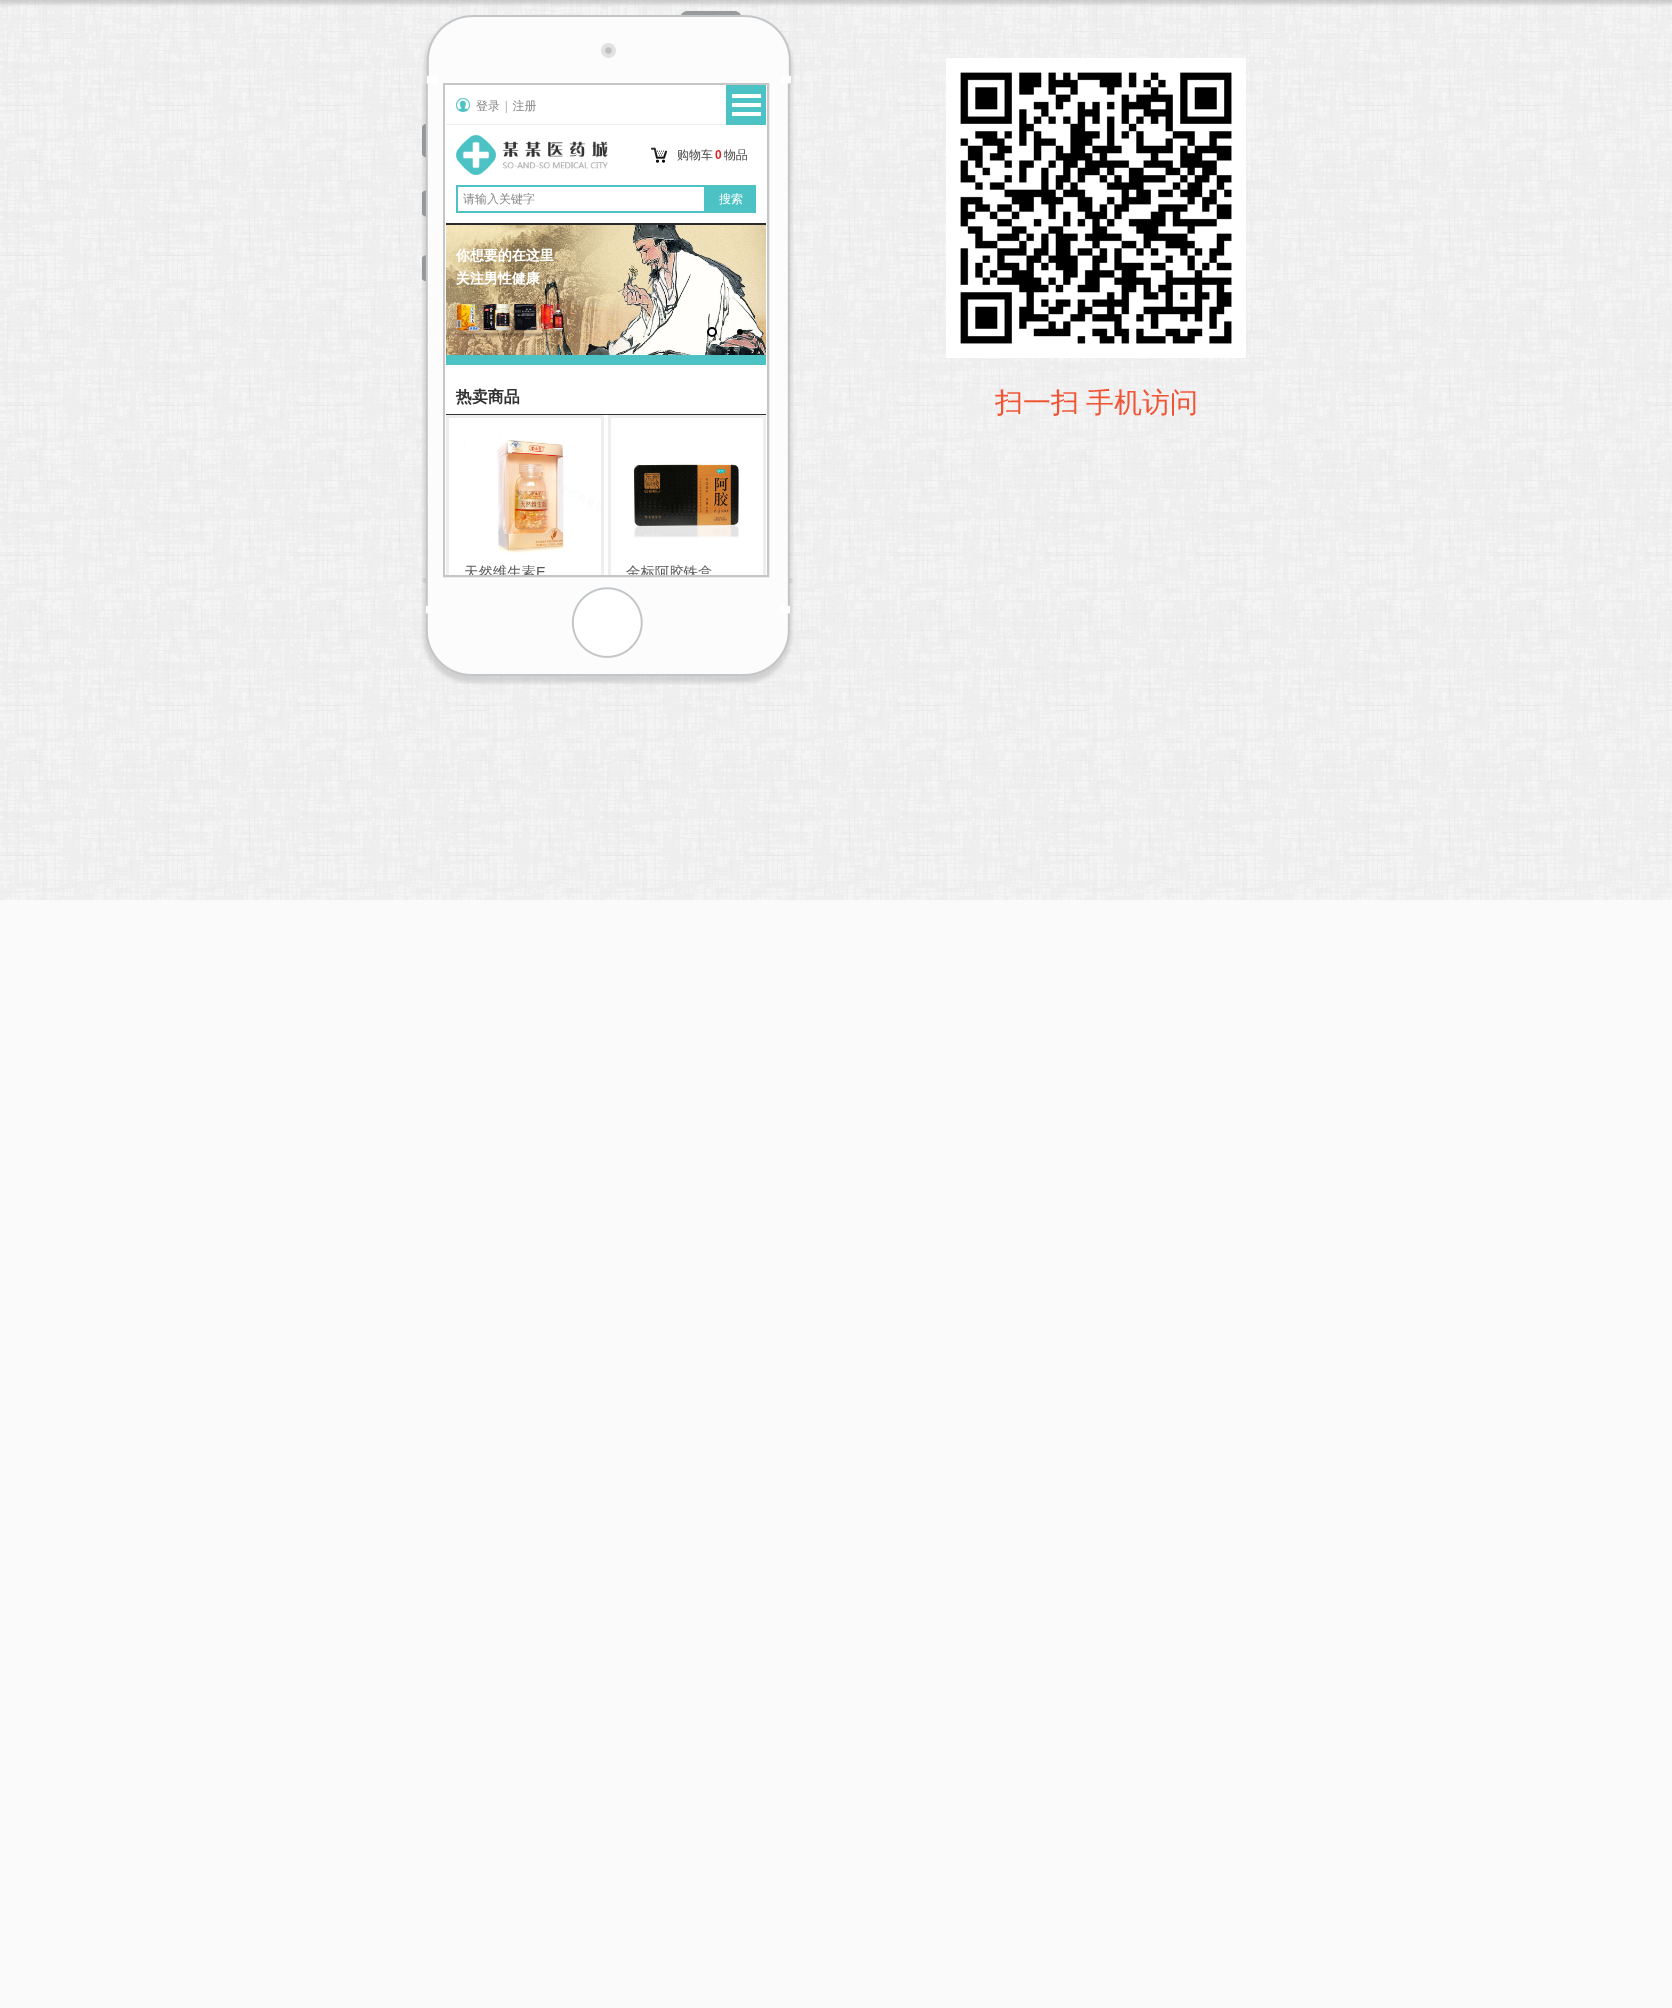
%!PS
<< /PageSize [1672 2008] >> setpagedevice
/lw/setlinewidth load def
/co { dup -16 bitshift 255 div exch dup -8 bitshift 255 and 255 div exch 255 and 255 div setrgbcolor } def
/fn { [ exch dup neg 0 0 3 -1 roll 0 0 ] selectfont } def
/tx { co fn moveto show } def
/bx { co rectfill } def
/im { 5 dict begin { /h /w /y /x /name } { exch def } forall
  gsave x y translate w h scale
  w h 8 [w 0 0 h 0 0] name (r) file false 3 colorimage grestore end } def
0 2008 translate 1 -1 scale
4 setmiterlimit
0 0 1672 2008 16#FAFAFA bx
(media/1.raw) 0 33 1672 867 im
(media/2.raw) 0 0 1672 33 im
(media/3.raw) 422 11 373 72 im
(media/4.raw) 421 83 373 500 im
16#C6C6C6 co
2 lw
444 84 324 492 rectstroke
445 85 322 490 16#FFFFFF bx
(media/5.raw) 446 85 320 490 im
(media/6.raw) 421 578 373 107 im
(media/7.raw) 946 58 300 300 im
(扫一扫) 995 412 /WenQuanYiZenHei-Medium 28 16#F15433 tx
(手机访问) 1086 412 /WenQuanYiZenHei-Medium 28 16#F15433 tx
showpage
